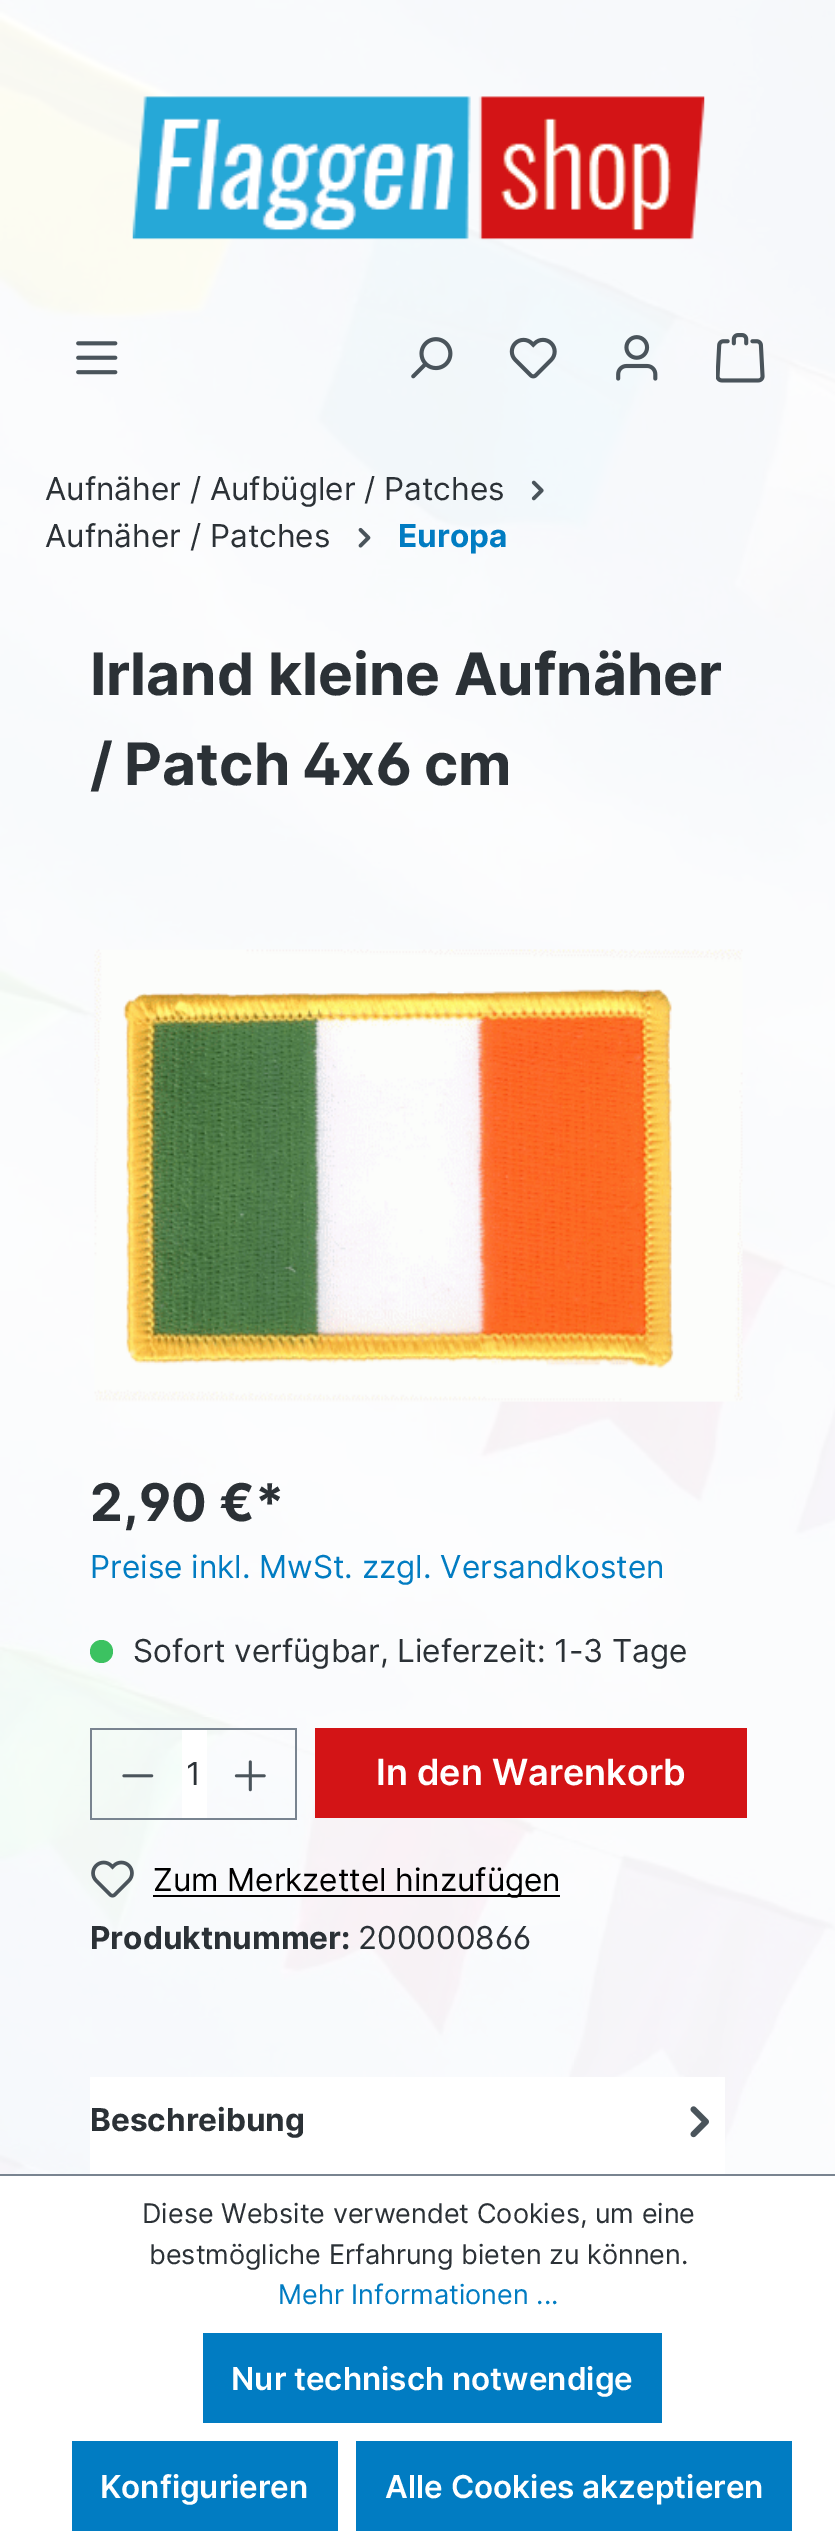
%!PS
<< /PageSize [835 2548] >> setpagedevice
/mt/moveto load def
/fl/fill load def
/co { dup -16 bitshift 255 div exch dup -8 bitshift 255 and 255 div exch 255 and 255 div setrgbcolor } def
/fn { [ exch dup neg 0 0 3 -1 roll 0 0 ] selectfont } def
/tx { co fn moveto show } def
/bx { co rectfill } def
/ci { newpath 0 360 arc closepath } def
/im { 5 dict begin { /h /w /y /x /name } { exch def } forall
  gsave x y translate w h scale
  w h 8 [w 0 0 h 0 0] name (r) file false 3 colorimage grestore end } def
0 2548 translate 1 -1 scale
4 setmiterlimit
0 0 835 2548 16#FFFFFF bx
(media/1.raw) 0 0 835 2174 im
(media/2.raw) 132 96 573 144 im
(media/3.raw) 76 341 42 34 im
(media/4.raw) 411 337 42 42 im
(media/5.raw) 509 337 48 42 im
(media/6.raw) 616 335 42 46 im
(media/7.raw) 716 333 49 50 im
(media/8.raw) 531 480 13 21 im
(media/9.raw) 358 527 13 21 im
(media/10.raw) 94 949 649 453 im
16#3CC261 co
101.5 1651.5 11.5 ci fl
90 1728 207 2 16#798490 bx
90 1818 117 2 16#798490 bx
90 1728 2 92 16#798490 bx
(media/11.raw) 122 1774 32 4 im
182 1730 25 88 16#FFFFFF bx
295 1728 2 92 16#798490 bx
205 1818 92 2 16#798490 bx
(media/12.raw) 234 1760 32 32 im
315 1728 432 90 16#D31416 bx
(media/13.raw) 91 1860 43 38 im
153 1895 407 2 16#000000 bx
90 2077 635 97 16#FFFFFF bx
(media/14.raw) 690 2106 19 32 im
0 2174 835 2 16#798490 bx
203 2333 459 90 16#017CC2 bx
72 2441 266 90 16#017CC2 bx
356 2441 436 90 16#017CC2 bx
(Aufnäher / Aufbügler / Patches) 45 500 /Inter-Regular 31.5 16#2B3136 tx
(Aufnäher / Patches) 45 547 /Inter-Regular 31.5 16#2B3136 tx
(Europa) 398 547 /Inter-Bold 31.5 16#017CC2 tx
(Irland kleine Aufnäher) 90 695 /Inter-Bold 58.6 16#2B3136 tx
/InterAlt-Bold 58.6 fn
90 785 mt -2 0 32 (/ Patch 4x6 cm) widthshow
(2,90 €*) 90 1521 /InterAlt-Bold 52 16#2B3136 tx
(Preise inkl. MwSt. zzgl. Versandkosten) 90 1578 /Inter-Regular 31.5 16#017CC2 tx
(Sofort verfügbar, Lieferzeit: 1-3 Tage) 133 1662 /Inter-Regular 31.5 16#2B3136 tx
(1) 186 1785 /Inter-Regular 31.5 16#2B3136 tx
(In den Warenkorb) 376 1785 /Inter-SemiBold 36 16#FFFFFF tx
(Zum Merkzettel hinzufügen) 153 1891 /Inter-Regular 31.5 16#000000 tx
(Produktnummer:) 90 1949 /Inter-Bold 31.5 16#2B3136 tx
(200000866) 358 1949 /InterAlt-Regular 31.5 16#2B3136 tx
(Beschreibung) 90 2131 /Inter-Bold 31.5 16#2B3136 tx
(Diese Website verwendet Cookies, um eine) 142 2223 /Inter-Regular 27 16#2B3136 tx
(bestmögliche Erfahrung bieten zu können.) 149 2264 /Inter-Regular 27 16#2B3136 tx
(Mehr Informationen ...) 278 2304 /Inter-Regular 27 16#017CC2 tx
(Nur technisch notwendige) 231 2390 /Inter-SemiBold 31.5 16#FFFFFF tx
(Konfigurieren) 100 2498 /Inter-SemiBold 31.5 16#FFFFFF tx
(Alle Cookies akzeptieren) 385 2498 /Inter-SemiBold 31.5 16#FFFFFF tx
showpage
